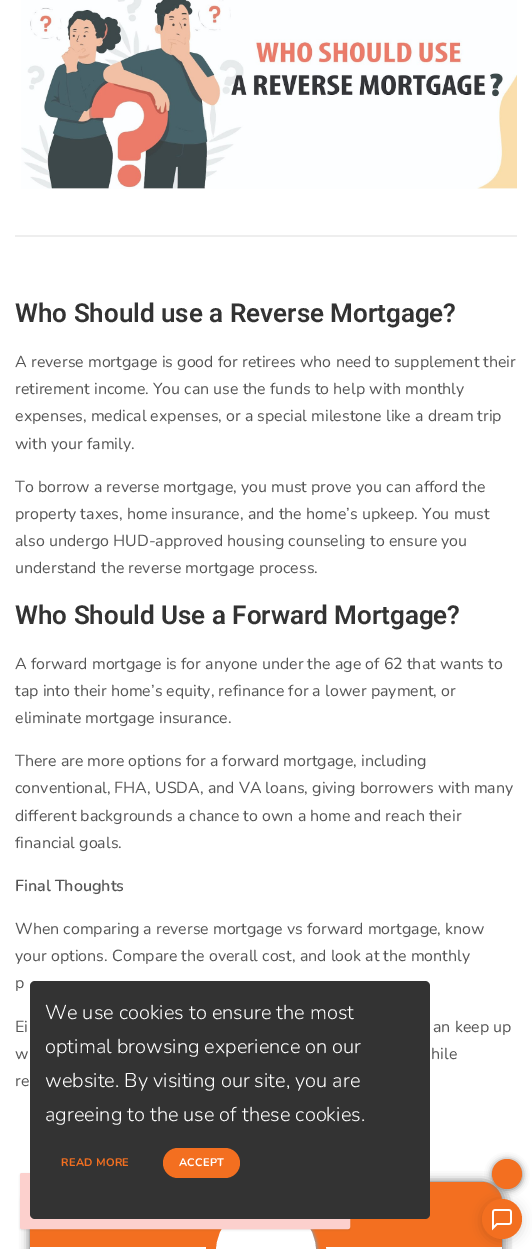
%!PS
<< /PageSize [532 1249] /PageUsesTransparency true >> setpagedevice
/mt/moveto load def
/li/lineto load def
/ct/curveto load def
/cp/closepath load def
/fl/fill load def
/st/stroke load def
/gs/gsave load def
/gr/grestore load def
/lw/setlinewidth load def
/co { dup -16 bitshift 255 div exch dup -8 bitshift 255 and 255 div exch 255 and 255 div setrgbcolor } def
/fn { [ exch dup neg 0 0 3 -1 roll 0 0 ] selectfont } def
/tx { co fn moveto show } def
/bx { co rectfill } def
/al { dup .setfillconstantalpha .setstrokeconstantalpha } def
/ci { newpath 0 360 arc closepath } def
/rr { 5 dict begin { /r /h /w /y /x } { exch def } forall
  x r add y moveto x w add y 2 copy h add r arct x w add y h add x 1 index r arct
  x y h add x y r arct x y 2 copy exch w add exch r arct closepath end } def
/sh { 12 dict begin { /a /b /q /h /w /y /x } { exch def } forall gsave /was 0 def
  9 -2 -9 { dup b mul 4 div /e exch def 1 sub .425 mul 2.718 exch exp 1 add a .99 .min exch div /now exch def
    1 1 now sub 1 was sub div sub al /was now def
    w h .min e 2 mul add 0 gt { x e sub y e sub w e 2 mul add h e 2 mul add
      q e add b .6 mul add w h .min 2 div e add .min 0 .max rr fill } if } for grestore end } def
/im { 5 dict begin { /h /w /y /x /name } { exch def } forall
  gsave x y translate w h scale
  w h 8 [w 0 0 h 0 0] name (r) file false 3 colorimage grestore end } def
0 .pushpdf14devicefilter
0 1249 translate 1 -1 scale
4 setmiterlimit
0 0 532 1249 16#FFFFFF bx
(media/1.raw) 21 0 496 189 im
15 235 502 2 16#EEEEEE bx
16#F2F2F2 co
487 1182 mt 482 1182 li 493 1182 502 1191 502 1202 ct 502 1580 li 502 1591 493 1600 482 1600 ct 50 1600 li 39 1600 30 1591 30 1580 ct 30 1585 li 30 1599 41 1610 55 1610 ct 487 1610 li 501 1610 512 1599 512 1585 ct 512 1207 li 512 1193 501 1182 487 1182 ct cp fl
16#555555 co
30 1182 472 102 20 5 1 sh
16#F36F20 co
30 1182 472 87 20 rr fl
30 1247 472 2 16#FFFFFF bx
16#F36F20 co
10 lw
266 1252 55 ci st
16#999999 co
218 1204 100 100 50 1.5 1 sh
16#FFFFFF co
217 1203 98 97 49 rr gs fl gr
2 lw
st
16#000000 co
20 1174 330 56 2 1 .1 sh
16#FCD0CD co
20.5 1173.5 329 55 1.5 rr gs fl gr
1 lw
st
16#333333 co
30 981 400 238 5 rr fl
16#F36F20 co
163 1148 77 30 15 rr fl
16#000000 co
482 1201 40 40 20 6 .15 sh
16#F36F20 co
502 1219 20 ci fl
16#777777 co
492 1160 30 30 15 3.5 1 sh
16#F36F20 co
507 1174 15 ci fl
(media/2.raw) 492 1209 20 22 im
(Who Should use a Reverse Mortgage?) 15 322 /Roboto-SemiBold 26 16#333333 tx
(A reverse mortgage is good for retirees who need to supplement their) 15 367 /Nunito-Regular 16 16#555555 tx
(retirement income. You can use the funds to help with monthly) 15 394 /Nunito-Regular 16 16#555555 tx
(expenses, medical expenses, or a special milestone like a dream trip) 15 421 /Nunito-Regular 16 16#555555 tx
(with your family.) 15 449 /Nunito-Regular 16 16#555555 tx
(To borrow a reverse mortgage, you must prove you can afford the) 15 492 /Nunito-Regular 16 16#555555 tx
(property taxes, home insurance, and the home’s upkeep. You must) 15 519 /Nunito-Regular 16 16#555555 tx
(also undergo HUD-approved housing counseling to ensure you) 15 546 /Nunito-Regular 16 16#555555 tx
(understand the reverse mortgage process.) 15 573 /Nunito-Regular 16 16#555555 tx
(Who Should Use a Forward Mortgage?) 15 624 /Roboto-SemiBold 26 16#333333 tx
(A forward mortgage is for anyone under the age of 62 that wants to) 15 669 /Nunito-Regular 16 16#555555 tx
(tap into their home’s equity, refinance for a lower payment, or) 15 696 /Nunito-Regular 16 16#555555 tx
(eliminate mortgage insurance.) 15 723 /Nunito-Regular 16 16#555555 tx
(There are more options for a forward mortgage, including) 15 766 /Nunito-Regular 16 16#555555 tx
(conventional, FHA, USDA, and VA loans, giving borrowers with many) 15 793 /Nunito-Regular 16 16#555555 tx
(different backgrounds a chance to own a home and reach their) 15 821 /Nunito-Regular 16 16#555555 tx
(financial goals.) 15 848 /Nunito-Regular 16 16#555555 tx
(Final Thoughts) 15 891 /Nunito-SemiBold 16 16#555555 tx
(When comparing a reverse mortgage vs forward mortgage, know) 15 934 /Nunito-Regular 16 16#555555 tx
(your options. Compare the overall cost, and look at the monthly) 15 961 /Nunito-Regular 16 16#555555 tx
(p) 15 988 /Nunito-Regular 16 16#555555 tx
(Ei) 15 1032 /Nunito-Regular 16 16#555555 tx
(an keep up) 433 1032 /Nunito-Regular 16 16#555555 tx
(w) 15 1059 /Nunito-Regular 16 16#555555 tx
(hile) 431 1059 /Nunito-Regular 16 16#555555 tx
(re) 15 1086 /Nunito-Regular 16 16#555555 tx
(We use cookies to ensure the most) 45 1019 /Nunito-Light 20 16#FFFFFF tx
(optimal browsing experience on our) 45 1053 /Nunito-Light 20 16#FFFFFF tx
(website. By visiting our site, you are) 45 1087 /Nunito-Light 20 16#FFFFFF tx
(agreeing to the use of these cookies.) 45 1121 /Nunito-Light 20 16#FFFFFF tx
/Nunito-Bold 11 fn
16#F36F20 co
61 1166 mt .25 0 (READ MORE) ashow
16#FFFFFF co
179 1166 mt .25 0 (ACCEPT) ashow
.poppdf14devicefilter showpage
